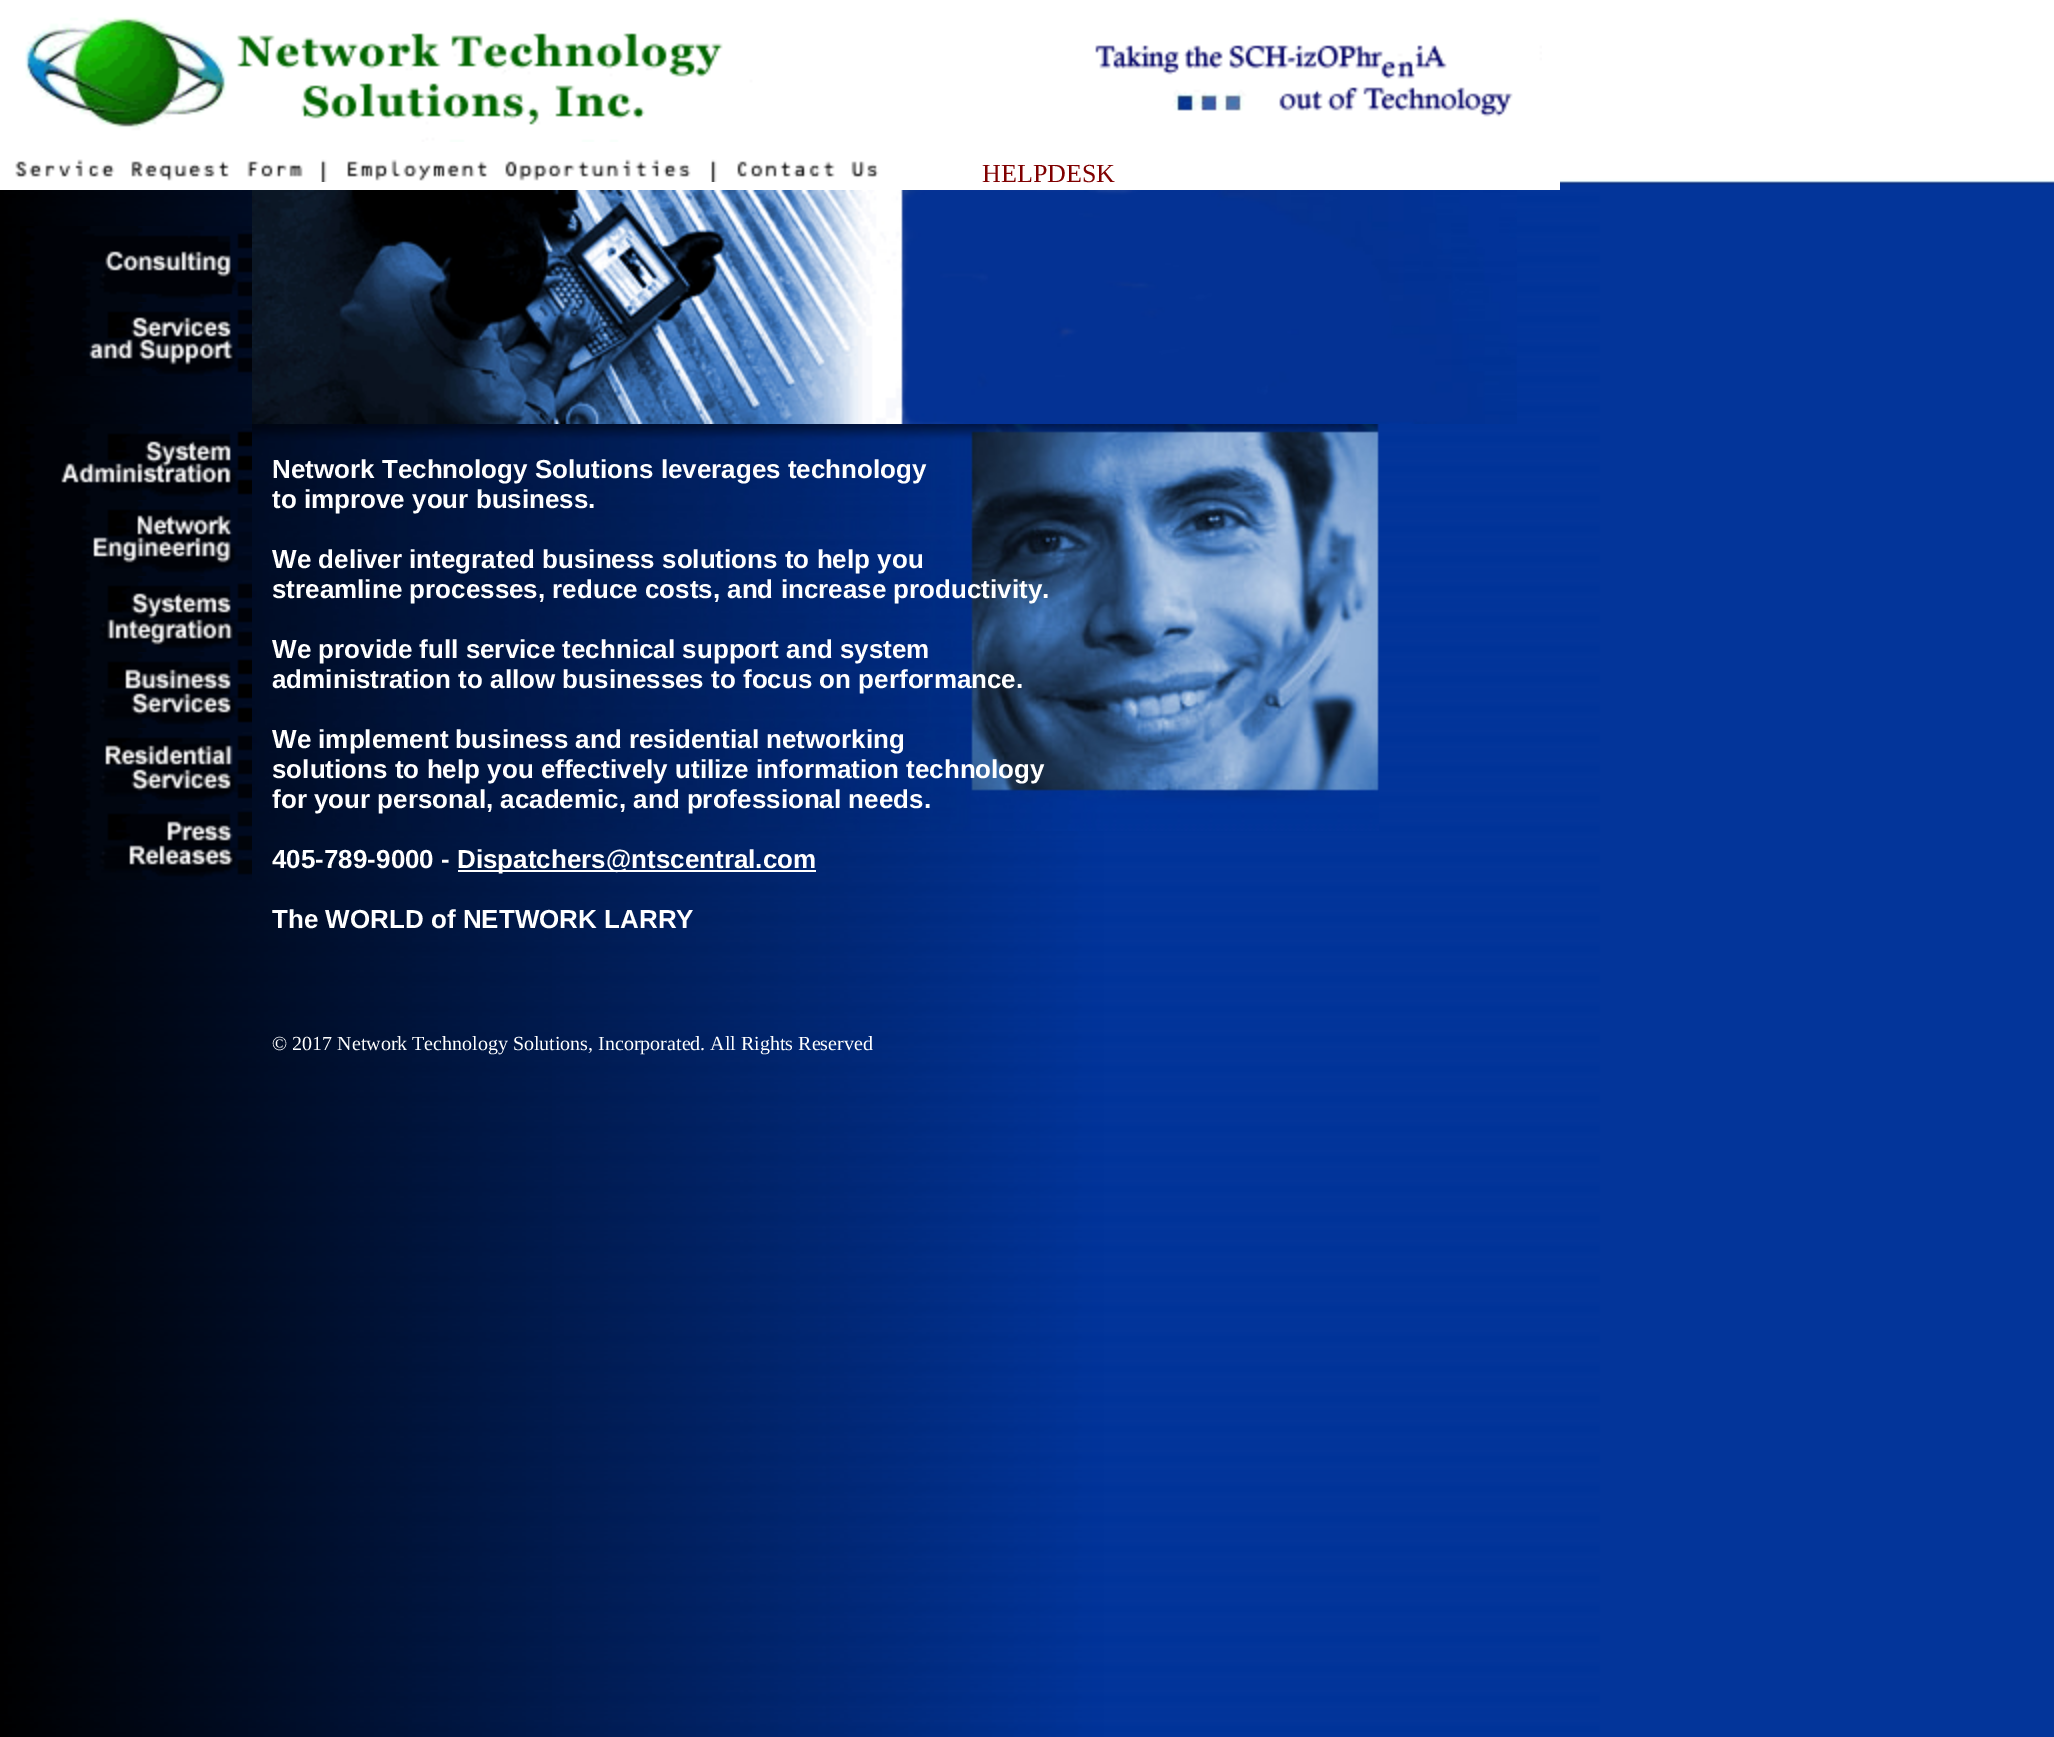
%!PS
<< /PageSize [2054 1737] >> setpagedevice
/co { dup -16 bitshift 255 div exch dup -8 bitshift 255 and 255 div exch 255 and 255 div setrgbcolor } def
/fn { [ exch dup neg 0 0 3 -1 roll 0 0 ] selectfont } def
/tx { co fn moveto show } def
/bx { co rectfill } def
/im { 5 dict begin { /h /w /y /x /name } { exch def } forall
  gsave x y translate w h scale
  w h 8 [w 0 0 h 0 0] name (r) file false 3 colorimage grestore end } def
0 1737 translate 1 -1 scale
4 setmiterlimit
0 0 2054 1737 16#FFFFFF bx
(media/1.raw) 0 185 2054 1552 im
(media/2.raw) 25 17 1517 125 im
0 185 1560 5 16#FFFFFF bx
(media/3.raw) 15 159 288 22 im
(media/4.raw) 321 159 370 23 im
(media/5.raw) 711 159 168 23 im
(media/6.raw) 20 226 232 76 im
(media/7.raw) 20 302 232 74 im
(media/8.raw) 252 190 1265 234 im
(media/9.raw) 20 424 232 76 im
(media/10.raw) 20 500 232 76 im
(media/11.raw) 20 576 232 76 im
(media/12.raw) 20 652 232 76 im
(media/13.raw) 20 728 232 76 im
(media/14.raw) 20 804 232 76 im
(media/15.raw) 252 424 1127 407 im
458 870 358 2 16#FFFFFF bx
(media/16.raw) 1560 146 494 39 im
(HELPDESK) 982 182 /LiberationSerif-Regular 26 16#800000 tx
(Network Technology Solutions leverages technology) 272 478 /LiberationSans-Bold 26 16#FFFFFF tx
(to improve your business.) 272 508 /LiberationSans-Bold 26 16#FFFFFF tx
(We deliver integrated business solutions to help you) 272 568 /LiberationSans-Bold 26 16#FFFFFF tx
(streamline processes, reduce costs, and increase productivity.) 272 598 /LiberationSans-Bold 26 16#FFFFFF tx
(We provide full service technical support and system) 272 658 /LiberationSans-Bold 26 16#FFFFFF tx
(administration to allow businesses to focus on performance.) 272 688 /LiberationSans-Bold 26 16#FFFFFF tx
(We implement business and residential networking) 272 748 /LiberationSans-Bold 26 16#FFFFFF tx
(solutions to help you effectively utilize information technology) 272 778 /LiberationSans-Bold 26 16#FFFFFF tx
(for your personal, academic, and professional needs.) 272 808 /LiberationSans-Bold 26 16#FFFFFF tx
(405-789-9000 -) 272 868 /LiberationSans-Bold 26 16#FFFFFF tx
(Dispatchers@ntscentral.com) 457 868 /LiberationSans-Bold 26 16#FFFFFF tx
(The WORLD of NETWORK LARRY) 272 928 /LiberationSans-Bold 26 16#FFFFFF tx
(© 2017 Network Technology Solutions, Incorporated. All Rights Reserved) 272 1050 /LiberationSerif-Regular 20 16#FFFFFF tx
showpage
